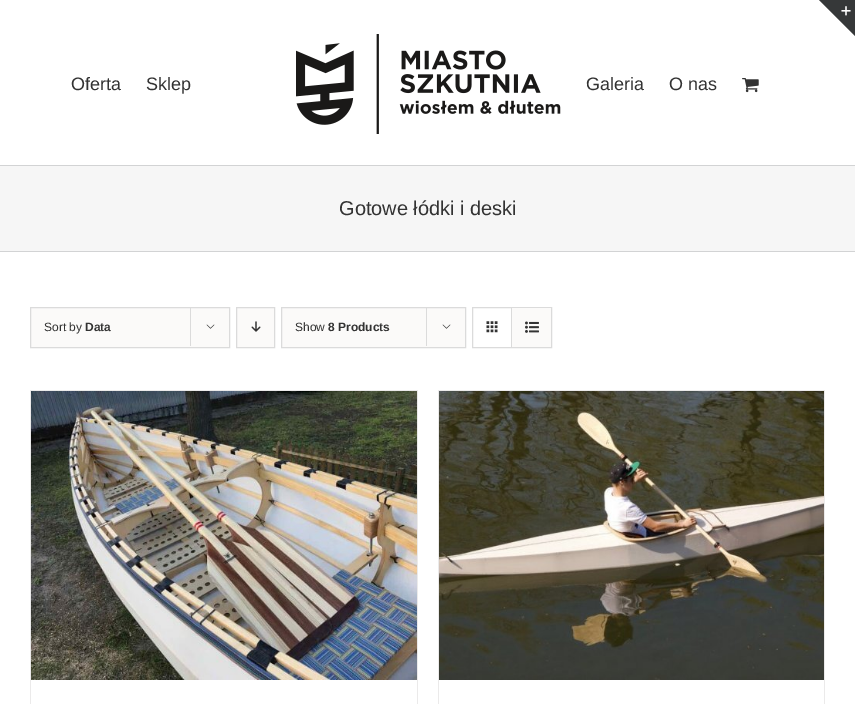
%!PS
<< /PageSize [855 704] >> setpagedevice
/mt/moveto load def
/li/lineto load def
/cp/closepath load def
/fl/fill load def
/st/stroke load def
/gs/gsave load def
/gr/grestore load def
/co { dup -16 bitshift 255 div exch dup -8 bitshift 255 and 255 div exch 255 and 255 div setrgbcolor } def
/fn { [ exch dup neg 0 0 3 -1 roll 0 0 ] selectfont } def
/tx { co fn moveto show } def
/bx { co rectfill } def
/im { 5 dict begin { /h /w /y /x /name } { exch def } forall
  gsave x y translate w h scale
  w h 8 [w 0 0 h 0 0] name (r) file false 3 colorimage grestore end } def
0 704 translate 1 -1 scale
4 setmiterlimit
0 0 855 704 16#FFFFFF bx
16#363839 co
819 0 mt 855 0 li 855 36 li cp fl
(media/1.raw) 841 6 10 10 im
(media/2.raw) 296 34 265 100 im
(media/3.raw) 742 78 17 15 im
0 166 855 85 16#F6F6F6 bx
0 165 855 1 16#D2D3D4 bx
0 251 855 1 16#D2D3D4 bx
16#FBFAF9 co
30.5 307.5 mt 229.5 307.5 li 229.5 347.5 li 30.5 347.5 li cp gs fl gr
16#DBDBDB co
st
190 307 1 39 16#DBDBDB bx
(media/4.raw) 206 324 9 5 im
16#FBFAF9 co
236.5 307.5 mt 274.5 307.5 li 274.5 347.5 li 236.5 347.5 li cp gs fl gr
16#DBDBDB co
st
(media/5.raw) 251 321 10 11 im
16#FBFAF9 co
281.5 307.5 mt 465.5 307.5 li 465.5 347.5 li 281.5 347.5 li cp gs fl gr
16#DBDBDB co
st
426 307 1 39 16#DBDBDB bx
(media/4.raw) 442 324 9 5 im
472.5 307.5 79 40 rectstroke
511 308 1 39 16#DBDBDB bx
(media/6.raw) 486 321 12 12 im
512 308 39 39 16#FBFAF9 bx
(media/7.raw) 525 321 14 12 im
30 390 388 1 16#EBEAEA bx
417 390 1 314 16#EBEAEA bx
30 390 1 314 16#EBEAEA bx
(media/8.raw) 31 391 386 289 im
438 390 387 1 16#EBEAEA bx
824 390 1 314 16#EBEAEA bx
438 390 1 314 16#EBEAEA bx
(media/9.raw) 439 391 385 289 im
(Oferta) 71 90 /LiberationSans-Regular 18 16#333333 tx
(Sklep) 146 90 /LiberationSans-Regular 18 16#333333 tx
(Galeria) 586 90 /LiberationSans-Regular 18 16#333333 tx
(O nas) 669 90 /LiberationSans-Regular 18 16#333333 tx
(Gotowe łódki i deski) 339 215 /LiberationSans-Regular 20 16#333333 tx
(Sort by) 44 331 /LiberationSans-Regular 12 16#333333 tx
(Data) 85 331 /LiberationSans-Bold 12 16#333333 tx
(Show) 295 331 /LiberationSans-Regular 12 16#333333 tx
(8 Products) 328 331 /LiberationSans-Bold 12 16#333333 tx
showpage
